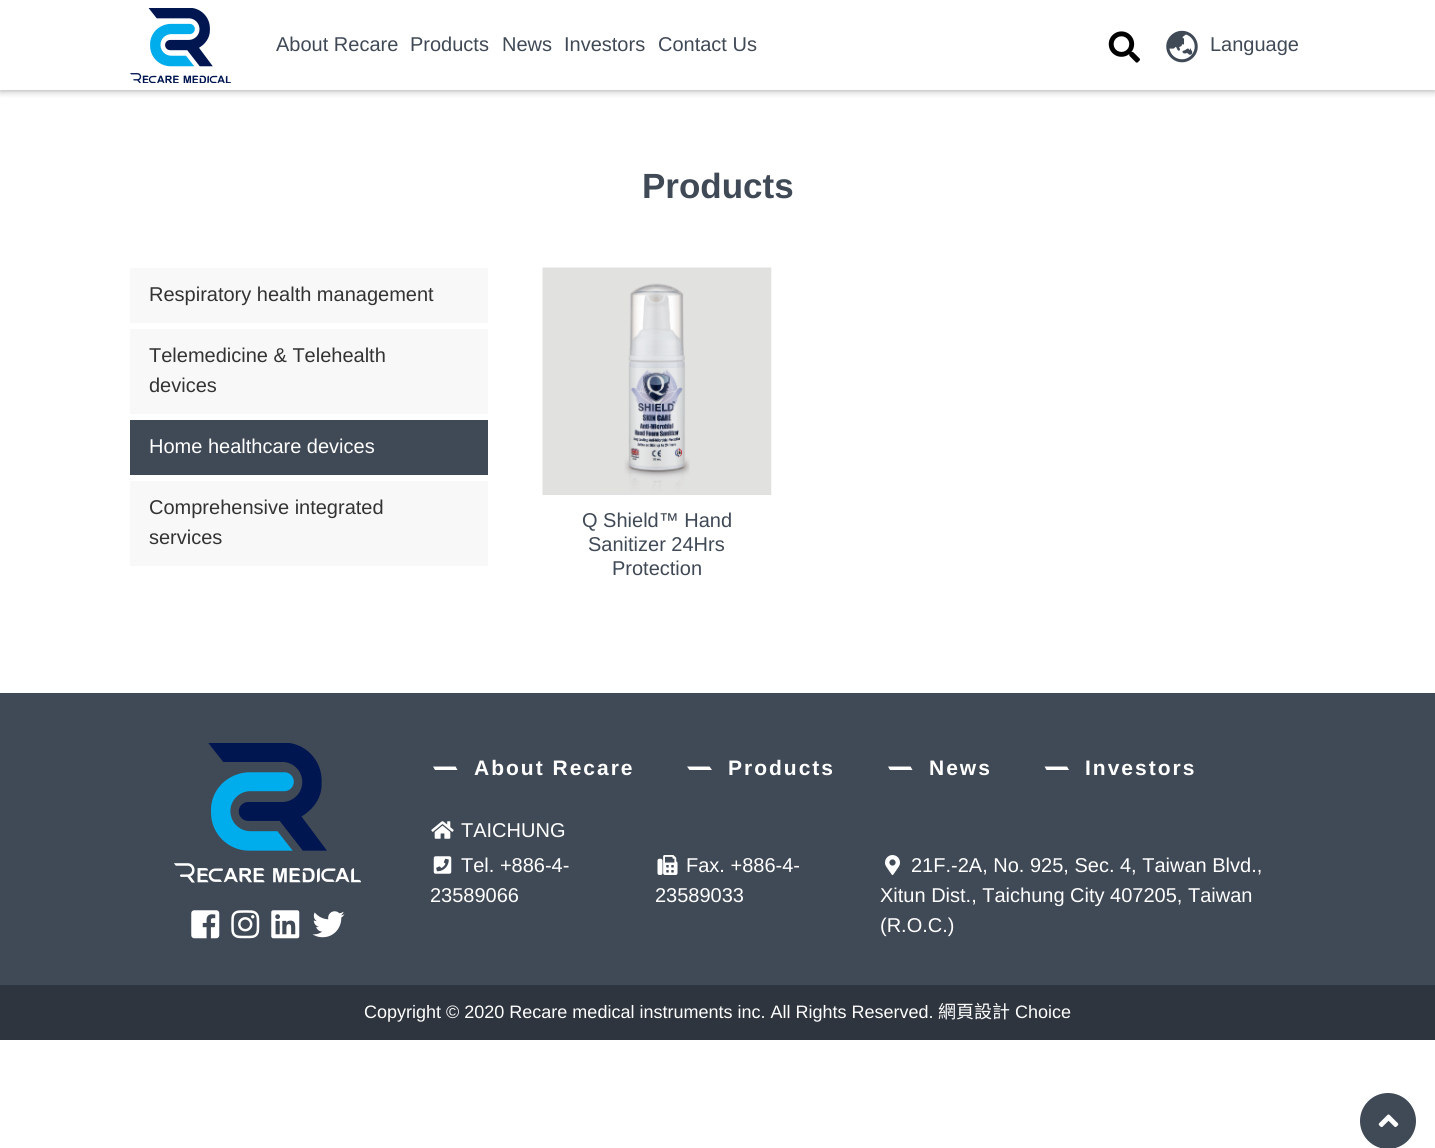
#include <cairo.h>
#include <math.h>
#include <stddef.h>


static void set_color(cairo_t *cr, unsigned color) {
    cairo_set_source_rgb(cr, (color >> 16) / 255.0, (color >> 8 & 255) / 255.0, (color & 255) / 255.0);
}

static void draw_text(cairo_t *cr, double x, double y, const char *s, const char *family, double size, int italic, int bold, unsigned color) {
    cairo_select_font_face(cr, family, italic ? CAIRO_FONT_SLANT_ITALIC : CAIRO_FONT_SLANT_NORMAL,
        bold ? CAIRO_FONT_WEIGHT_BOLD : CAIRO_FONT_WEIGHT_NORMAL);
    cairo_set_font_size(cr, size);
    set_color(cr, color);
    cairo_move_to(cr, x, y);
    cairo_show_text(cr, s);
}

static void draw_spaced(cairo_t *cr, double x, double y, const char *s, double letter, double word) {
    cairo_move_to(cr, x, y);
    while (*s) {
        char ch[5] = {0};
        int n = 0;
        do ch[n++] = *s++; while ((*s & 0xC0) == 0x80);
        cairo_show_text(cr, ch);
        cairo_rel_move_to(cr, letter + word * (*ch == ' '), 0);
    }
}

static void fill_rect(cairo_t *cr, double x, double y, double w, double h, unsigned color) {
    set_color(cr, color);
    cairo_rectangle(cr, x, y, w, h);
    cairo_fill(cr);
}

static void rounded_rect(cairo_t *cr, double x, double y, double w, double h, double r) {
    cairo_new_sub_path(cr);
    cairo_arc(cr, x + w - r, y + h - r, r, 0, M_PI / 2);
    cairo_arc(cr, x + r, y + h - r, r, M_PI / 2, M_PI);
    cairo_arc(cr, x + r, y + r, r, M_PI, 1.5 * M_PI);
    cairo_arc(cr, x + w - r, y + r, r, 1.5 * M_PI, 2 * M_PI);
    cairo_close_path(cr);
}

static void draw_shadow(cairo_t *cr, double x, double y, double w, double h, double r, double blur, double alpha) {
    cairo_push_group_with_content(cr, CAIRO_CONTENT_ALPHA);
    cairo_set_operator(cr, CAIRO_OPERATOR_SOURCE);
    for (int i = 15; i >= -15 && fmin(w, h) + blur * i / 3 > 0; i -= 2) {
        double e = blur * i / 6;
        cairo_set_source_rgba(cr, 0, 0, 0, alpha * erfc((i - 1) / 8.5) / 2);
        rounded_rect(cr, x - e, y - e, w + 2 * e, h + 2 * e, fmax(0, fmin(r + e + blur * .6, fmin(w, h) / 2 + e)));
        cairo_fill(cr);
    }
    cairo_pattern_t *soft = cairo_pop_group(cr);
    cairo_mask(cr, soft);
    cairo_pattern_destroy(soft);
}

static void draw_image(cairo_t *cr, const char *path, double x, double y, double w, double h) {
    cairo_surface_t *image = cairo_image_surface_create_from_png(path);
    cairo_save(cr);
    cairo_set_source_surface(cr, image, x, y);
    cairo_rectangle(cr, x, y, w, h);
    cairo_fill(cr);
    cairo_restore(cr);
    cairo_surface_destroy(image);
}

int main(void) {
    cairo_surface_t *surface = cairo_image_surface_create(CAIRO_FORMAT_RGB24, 1435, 1148);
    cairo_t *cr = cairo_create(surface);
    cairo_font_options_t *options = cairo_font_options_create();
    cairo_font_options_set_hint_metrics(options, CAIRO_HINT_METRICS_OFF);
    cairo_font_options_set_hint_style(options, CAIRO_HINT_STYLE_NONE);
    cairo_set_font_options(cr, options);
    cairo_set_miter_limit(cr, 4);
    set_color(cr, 0xFFFFFF);
    cairo_paint(cr);
    cairo_save(cr);
    cairo_rectangle(cr, 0, 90, 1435, 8);
    cairo_clip(cr);
    set_color(cr, 0x999999);
    draw_shadow(cr, 0, 0, 1435, 90, 0, 4, 1);
    cairo_restore(cr);
    draw_image(cr, "assets/img1.png", 130, 8, 101, 75);
    draw_text(cr, 276, 51, "About Recare", "Liberation Sans", 20, 0, 0, 0x404956);
    draw_text(cr, 410, 51, "Products", "Liberation Sans", 20, 0, 0, 0x404956);
    draw_text(cr, 502, 51, "News", "Liberation Sans", 20, 0, 0, 0x404956);
    draw_text(cr, 564, 51, "Investors", "Liberation Sans", 20, 0, 0, 0x404956);
    draw_text(cr, 658, 51, "Contact Us", "Liberation Sans", 20, 0, 0, 0x404956);
    draw_image(cr, "assets/img2.png", 1108, 31, 32, 32);
    draw_image(cr, "assets/img3.png", 1166, 30, 32, 33);
    draw_text(cr, 1210, 51, "Language", "Liberation Sans", 20, 0, 0, 0x404956);
    draw_text(cr, 642, 198, "Products", "Liberation Sans", 35, 0, 1, 0x404956);
    fill_rect(cr, 130, 268, 358, 55, 0xF8F8F8);
    draw_text(cr, 149, 301, "Respiratory health management", "Liberation Sans", 20, 0, 0, 0x333333);
    fill_rect(cr, 130, 329, 358, 85, 0xF8F8F8);
    draw_text(cr, 149, 362, "Telemedicine & Telehealth", "Liberation Sans", 20, 0, 0, 0x333333);
    draw_text(cr, 149, 392, "devices", "Liberation Sans", 20, 0, 0, 0x333333);
    fill_rect(cr, 130, 420, 358, 55, 0x404956);
    draw_text(cr, 149, 453, "Home healthcare devices", "Liberation Sans", 20, 0, 0, 0xFFFFFF);
    fill_rect(cr, 130, 481, 358, 85, 0xF8F8F8);
    draw_text(cr, 149, 514, "Comprehensive integrated", "Liberation Sans", 20, 0, 0, 0x333333);
    draw_text(cr, 149, 544, "services", "Liberation Sans", 20, 0, 0, 0x333333);
    draw_image(cr, "assets/img4.png", 542, 267, 230, 228);
    draw_text(cr, 582, 527, "Q Shield™ Hand", "Liberation Sans", 20, 0, 0, 0x404956);
    draw_text(cr, 588, 551, "Sanitizer 24Hrs", "Liberation Sans", 20, 0, 0, 0x404956);
    draw_text(cr, 612, 575, "Protection", "Liberation Sans", 20, 0, 0, 0x404956);
    fill_rect(cr, 0, 693, 1435, 292, 0x404956);
    draw_image(cr, "assets/img5.png", 174, 743, 187, 140);
    draw_image(cr, "assets/img6.png", 191, 910, 29, 29);
    draw_image(cr, "assets/img7.png", 231, 910, 29, 29);
    draw_image(cr, "assets/img8.png", 271, 910, 29, 29);
    draw_image(cr, "assets/img9.png", 312, 911, 33, 27);
    set_color(cr, 0xFFFFFF);
    cairo_new_path(cr);
    cairo_move_to(cr, 433, 766.5);
    cairo_line_to(cr, 455.5, 766.5);
    cairo_line_to(cr, 457.5, 770);
    cairo_line_to(cr, 435, 770);
    cairo_close_path(cr);
    cairo_fill(cr);
    cairo_select_font_face(cr, "Liberation Sans", CAIRO_FONT_SLANT_NORMAL, CAIRO_FONT_WEIGHT_BOLD);
    cairo_set_font_size(cr, 21);
    draw_spaced(cr, 474, 775, "About Recare", 2, 0);
    cairo_new_path(cr);
    cairo_move_to(cr, 687, 766.5);
    cairo_line_to(cr, 709.5, 766.5);
    cairo_line_to(cr, 712, 770);
    cairo_line_to(cr, 689.5, 770);
    cairo_close_path(cr);
    cairo_fill(cr);
    draw_spaced(cr, 728, 775, "Products", 2, 0);
    cairo_new_path(cr);
    cairo_move_to(cr, 888, 766.5);
    cairo_line_to(cr, 910.5, 766.5);
    cairo_line_to(cr, 912.5, 770);
    cairo_line_to(cr, 890, 770);
    cairo_close_path(cr);
    cairo_fill(cr);
    draw_spaced(cr, 929, 775, "News", 2, 0);
    cairo_new_path(cr);
    cairo_move_to(cr, 1044.5, 766.5);
    cairo_line_to(cr, 1067, 766.5);
    cairo_line_to(cr, 1069, 770);
    cairo_line_to(cr, 1046.5, 770);
    cairo_close_path(cr);
    cairo_fill(cr);
    draw_spaced(cr, 1085, 775, "Investors", 2, 0);
    draw_image(cr, "assets/img10.png", 431, 821, 23, 18);
    draw_text(cr, 461, 837, "TAICHUNG", "Liberation Sans", 20, 0, 0, 0xFFFFFF);
    draw_image(cr, "assets/img11.png", 433, 856, 19, 18);
    draw_text(cr, 461, 872, "Tel. +886-4-", "Liberation Sans", 20, 0, 0, 0xFFFFFF);
    draw_text(cr, 430, 902, "23589066", "Liberation Sans", 20, 0, 0, 0xFFFFFF);
    draw_image(cr, "assets/img12.png", 657, 855, 21, 20);
    draw_text(cr, 686, 872, "Fax. +886-4-", "Liberation Sans", 20, 0, 0, 0xFFFFFF);
    draw_text(cr, 655, 902, "23589033", "Liberation Sans", 20, 0, 0, 0xFFFFFF);
    draw_image(cr, "assets/img13.png", 885, 855, 15, 20);
    draw_text(cr, 911, 872, "21F.-2A, No. 925, Sec. 4, Taiwan Blvd.,", "Liberation Sans", 20, 0, 0, 0xFFFFFF);
    draw_text(cr, 880, 902, "Xitun Dist., Taichung City 407205, Taiwan", "Liberation Sans", 20, 0, 0, 0xFFFFFF);
    draw_text(cr, 880, 932, "(R.O.C.)", "Liberation Sans", 20, 0, 0, 0xFFFFFF);
    fill_rect(cr, 0, 985, 1435, 55, 0x2F353E);
    draw_text(cr, 364, 1018, "Copyright © 2020 Recare medical instruments inc. All Rights Reserved.", "Liberation Sans", 18, 0, 0, 0xFFFFFF);
    draw_text(cr, 938, 1018, "網頁設計", "Noto Sans CJK TC", 18, 0, 0, 0xFFFFFF);
    draw_text(cr, 1015, 1018, "Choice", "Liberation Sans", 18, 0, 0, 0xFFFFFF);
    set_color(cr, 0x404956);
    cairo_new_path(cr);
    cairo_arc(cr, 1388, 1121, 28, 0, 2 * M_PI);
    cairo_fill(cr);
    draw_image(cr, "assets/img14.png", 1378, 1114, 21, 14);
    cairo_surface_write_to_png(surface, "output.png");
    cairo_font_options_destroy(options);
    cairo_destroy(cr);
    cairo_surface_destroy(surface);
    return 0;
}
